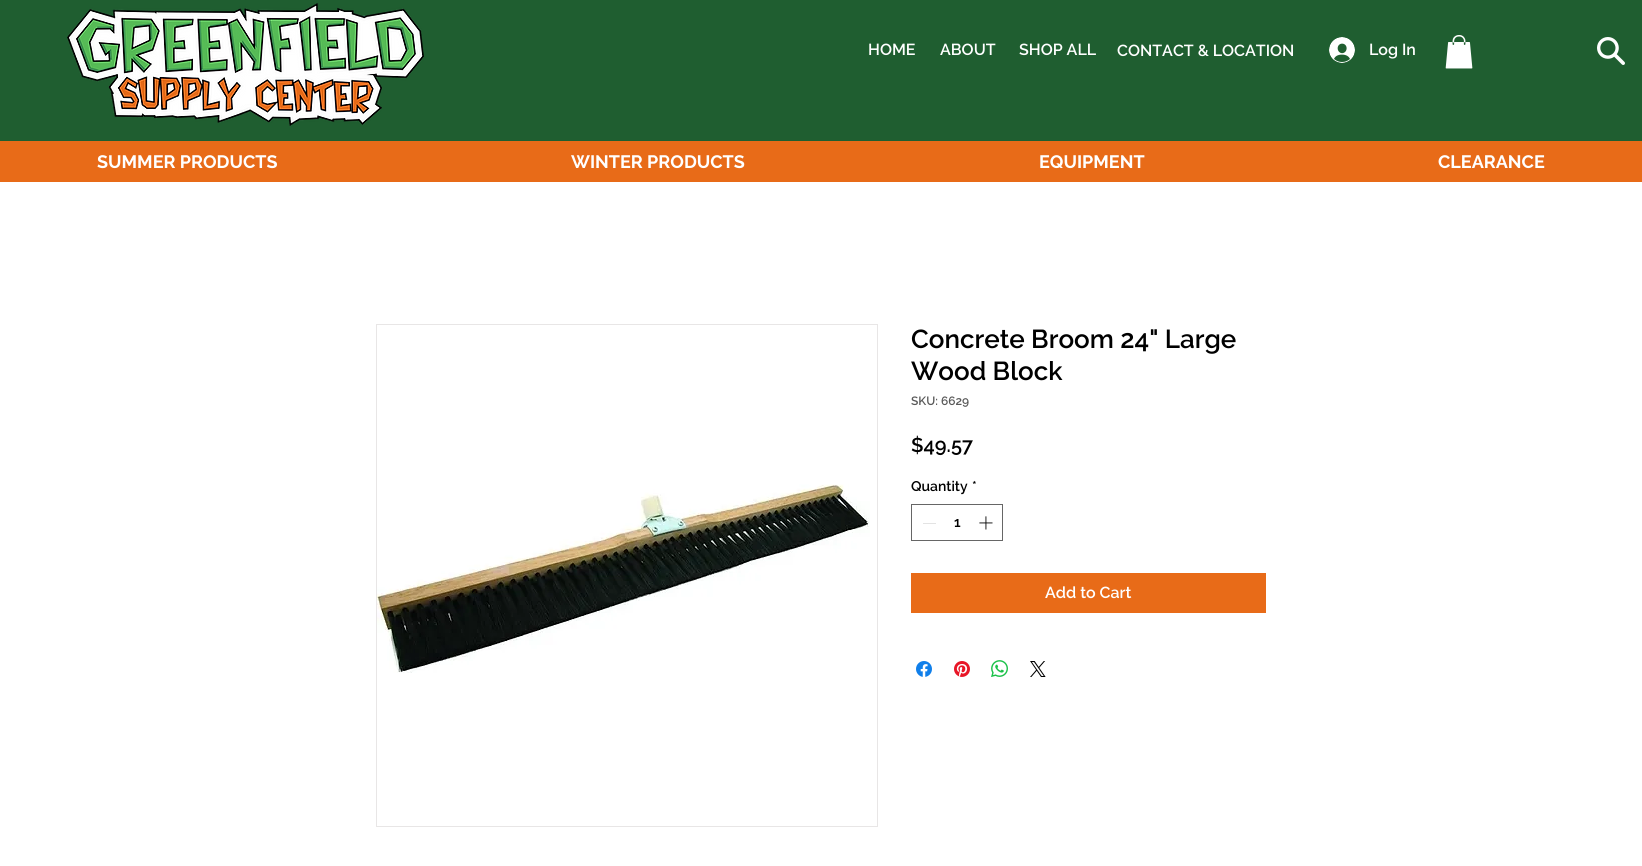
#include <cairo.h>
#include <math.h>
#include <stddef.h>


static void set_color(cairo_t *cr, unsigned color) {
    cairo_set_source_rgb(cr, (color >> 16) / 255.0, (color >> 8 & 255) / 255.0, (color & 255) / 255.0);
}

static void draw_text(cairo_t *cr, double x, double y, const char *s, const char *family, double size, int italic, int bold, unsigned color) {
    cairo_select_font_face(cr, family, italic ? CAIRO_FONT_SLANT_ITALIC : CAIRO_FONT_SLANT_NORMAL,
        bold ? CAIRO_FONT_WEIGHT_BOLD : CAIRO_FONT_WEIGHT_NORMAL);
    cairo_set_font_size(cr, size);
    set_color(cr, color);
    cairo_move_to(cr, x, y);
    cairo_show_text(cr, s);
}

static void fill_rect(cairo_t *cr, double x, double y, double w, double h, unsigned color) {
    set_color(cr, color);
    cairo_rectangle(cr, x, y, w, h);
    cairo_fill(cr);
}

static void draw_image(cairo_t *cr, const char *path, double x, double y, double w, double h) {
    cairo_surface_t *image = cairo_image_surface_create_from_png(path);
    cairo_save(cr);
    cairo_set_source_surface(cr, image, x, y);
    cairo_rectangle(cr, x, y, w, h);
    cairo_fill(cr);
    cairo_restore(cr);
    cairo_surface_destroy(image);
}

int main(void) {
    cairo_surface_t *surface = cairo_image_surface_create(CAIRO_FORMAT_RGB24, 1642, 866);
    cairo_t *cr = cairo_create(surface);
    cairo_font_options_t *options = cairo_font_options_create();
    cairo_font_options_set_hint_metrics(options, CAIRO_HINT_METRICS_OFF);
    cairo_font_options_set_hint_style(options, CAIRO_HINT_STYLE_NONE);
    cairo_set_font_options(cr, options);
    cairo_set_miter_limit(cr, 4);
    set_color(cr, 0xFFFFFF);
    cairo_paint(cr);
    fill_rect(cr, 0, 0, 1642, 141, 0x1F5E30);
    draw_image(cr, "assets/img1.png", 67, 3, 357, 123);
    draw_text(cr, 868, 55, "HOME", "Raleway SemiBold", 16, 0, 0, 0xFFFFFF);
    draw_text(cr, 940, 55, "ABOUT", "Raleway SemiBold", 16, 0, 0, 0xFFFFFF);
    draw_text(cr, 1019, 55, "SHOP ALL", "Raleway SemiBold", 16, 0, 0, 0xFFFFFF);
    draw_text(cr, 1117, 56, "CONTACT & LOCATION", "Raleway SemiBold", 16, 0, 0, 0xFFFFFF);
    draw_image(cr, "assets/img2.png", 1329, 37, 26, 26);
    draw_text(cr, 1369, 55, "Log In", "Raleway SemiBold", 16, 0, 0, 0xFFFFFF);
    draw_image(cr, "assets/img3.png", 1445, 35, 28, 34);
    draw_image(cr, "assets/img4.png", 1597, 37, 28, 28);
    fill_rect(cr, 0, 141, 1642, 41, 0xE86B18);
    draw_text(cr, 97, 168, "SUMMER PRODUCTS", "Raleway", 18, 0, 1, 0xFFFFFF);
    draw_text(cr, 571, 168, "WINTER PRODUCTS", "Raleway", 18, 0, 1, 0xFFFFFF);
    draw_text(cr, 1039, 168, "EQUIPMENT", "Raleway", 18, 0, 1, 0xFFFFFF);
    draw_text(cr, 1438, 168, "CLEARANCE", "Raleway", 18, 0, 1, 0xFFFFFF);
    cairo_rectangle(cr, 376.5, 324.5, 501, 502);
    set_color(cr, 0xE8E6E6);
    cairo_set_line_width(cr, 1);
    cairo_stroke(cr);
    draw_image(cr, "assets/img5.png", 377, 484, 493, 189);
    draw_text(cr, 911, 348, "Concrete Broom 24\" Large", "Raleway SemiBold", 26, 0, 0, 0x000000);
    draw_text(cr, 911, 380, "Wood Block", "Raleway SemiBold", 26, 0, 0, 0x000000);
    draw_text(cr, 911, 405, "SKU: 6629", "Raleway SemiBold", 12, 0, 0, 0x595959);
    draw_text(cr, 911, 452, "$49.57", "Raleway SemiBold", 20, 0, 0, 0x000000);
    draw_text(cr, 911, 491, "Quantity", "Raleway SemiBold", 14, 0, 0, 0x000000);
    draw_text(cr, 972, 491, "*", "Raleway SemiBold", 14, 0, 0, 0x000000);
    cairo_rectangle(cr, 911.5, 504.5, 91, 36);
    set_color(cr, 0x666666);
    cairo_stroke(cr);
    fill_rect(cr, 923, 523, 13, 1, 0xE3E3E3);
    draw_text(cr, 954, 527, "1", "Raleway SemiBold", 14, 0, 0, 0x000000);
    draw_image(cr, "assets/img6.png", 979, 516, 14, 14);
    fill_rect(cr, 911, 573, 355, 40, 0xE86B18);
    draw_text(cr, 1045, 598, "Add to Cart", "Raleway SemiBold", 16, 0, 0, 0xFFFFFF);
    draw_image(cr, "assets/img7.png", 916, 661, 16, 16);
    draw_image(cr, "assets/img8.png", 954, 661, 16, 16);
    draw_image(cr, "assets/img9.png", 991, 660, 17, 17);
    draw_image(cr, "assets/img10.png", 1030, 661, 16, 16);
    cairo_surface_write_to_png(surface, "output.png");
    cairo_font_options_destroy(options);
    cairo_destroy(cr);
    cairo_surface_destroy(surface);
    return 0;
}
